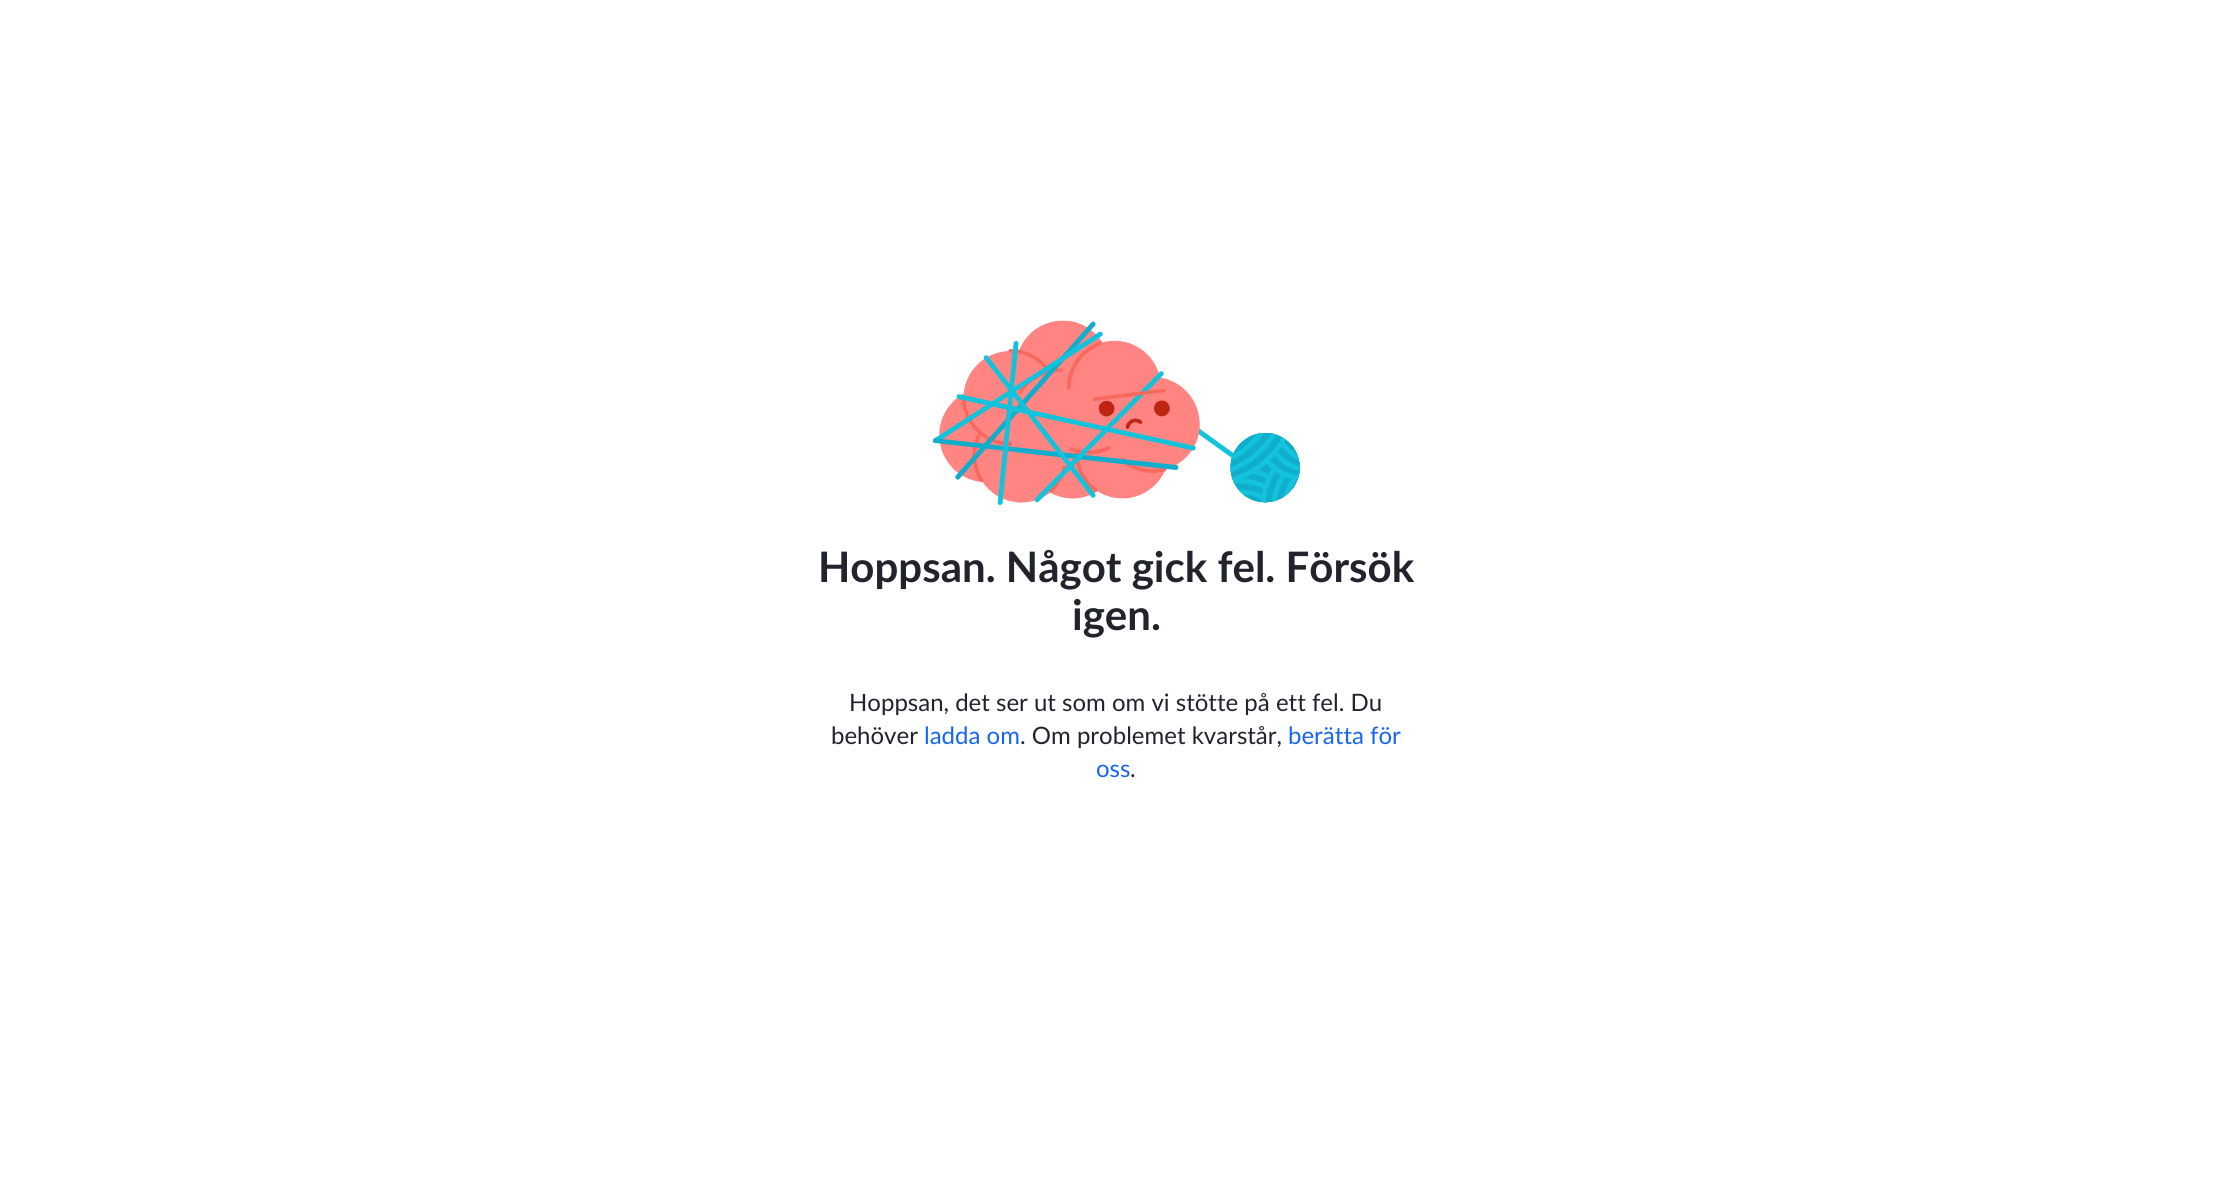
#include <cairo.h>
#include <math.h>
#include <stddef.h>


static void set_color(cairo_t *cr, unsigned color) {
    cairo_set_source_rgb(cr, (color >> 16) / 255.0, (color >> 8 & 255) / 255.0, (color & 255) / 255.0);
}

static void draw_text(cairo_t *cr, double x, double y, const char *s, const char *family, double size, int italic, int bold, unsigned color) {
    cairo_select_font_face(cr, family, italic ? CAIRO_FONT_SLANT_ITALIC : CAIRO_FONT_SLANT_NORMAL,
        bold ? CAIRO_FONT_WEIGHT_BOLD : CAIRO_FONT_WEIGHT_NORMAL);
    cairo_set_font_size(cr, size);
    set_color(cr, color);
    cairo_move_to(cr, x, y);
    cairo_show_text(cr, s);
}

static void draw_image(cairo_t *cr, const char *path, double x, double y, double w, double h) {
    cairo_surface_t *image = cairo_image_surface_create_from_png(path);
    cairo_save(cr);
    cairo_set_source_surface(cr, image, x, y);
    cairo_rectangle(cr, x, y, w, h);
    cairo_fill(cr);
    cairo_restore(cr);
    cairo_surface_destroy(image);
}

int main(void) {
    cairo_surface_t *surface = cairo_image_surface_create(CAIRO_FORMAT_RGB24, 2232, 1194);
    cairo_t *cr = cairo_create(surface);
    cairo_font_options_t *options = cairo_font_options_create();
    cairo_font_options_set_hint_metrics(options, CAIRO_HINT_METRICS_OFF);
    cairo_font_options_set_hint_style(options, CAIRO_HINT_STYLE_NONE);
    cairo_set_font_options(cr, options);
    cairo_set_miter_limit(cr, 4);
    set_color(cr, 0xFFFFFF);
    cairo_paint(cr);
    draw_image(cr, "assets/img1.png", 933, 320, 367, 185);
    draw_text(cr, 818, 582, "Hoppsan. Något gick fel. Försök", "Lato", 42, 0, 1, 0x21242C);
    draw_text(cr, 1072, 630, "igen.", "Lato", 42, 0, 1, 0x21242C);
    draw_text(cr, 849, 711, "Hoppsan, det ser ut som om vi stötte på ett fel. Du", "Lato", 24, 0, 0, 0x21242C);
    draw_text(cr, 831, 744, "behöver", "Lato", 24, 0, 0, 0x21242C);
    draw_text(cr, 924, 744, "ladda om", "Lato", 24, 0, 0, 0x1865F2);
    draw_text(cr, 1020, 744, ". Om problemet kvarstår,", "Lato", 24, 0, 0, 0x21242C);
    draw_text(cr, 1288, 744, "berätta för", "Lato", 24, 0, 0, 0x1865F2);
    draw_text(cr, 1096, 777, "oss", "Lato", 24, 0, 0, 0x1865F2);
    draw_text(cr, 1130, 777, ".", "Lato", 24, 0, 0, 0x21242C);
    cairo_surface_write_to_png(surface, "output.png");
    cairo_font_options_destroy(options);
    cairo_destroy(cr);
    cairo_surface_destroy(surface);
    return 0;
}
